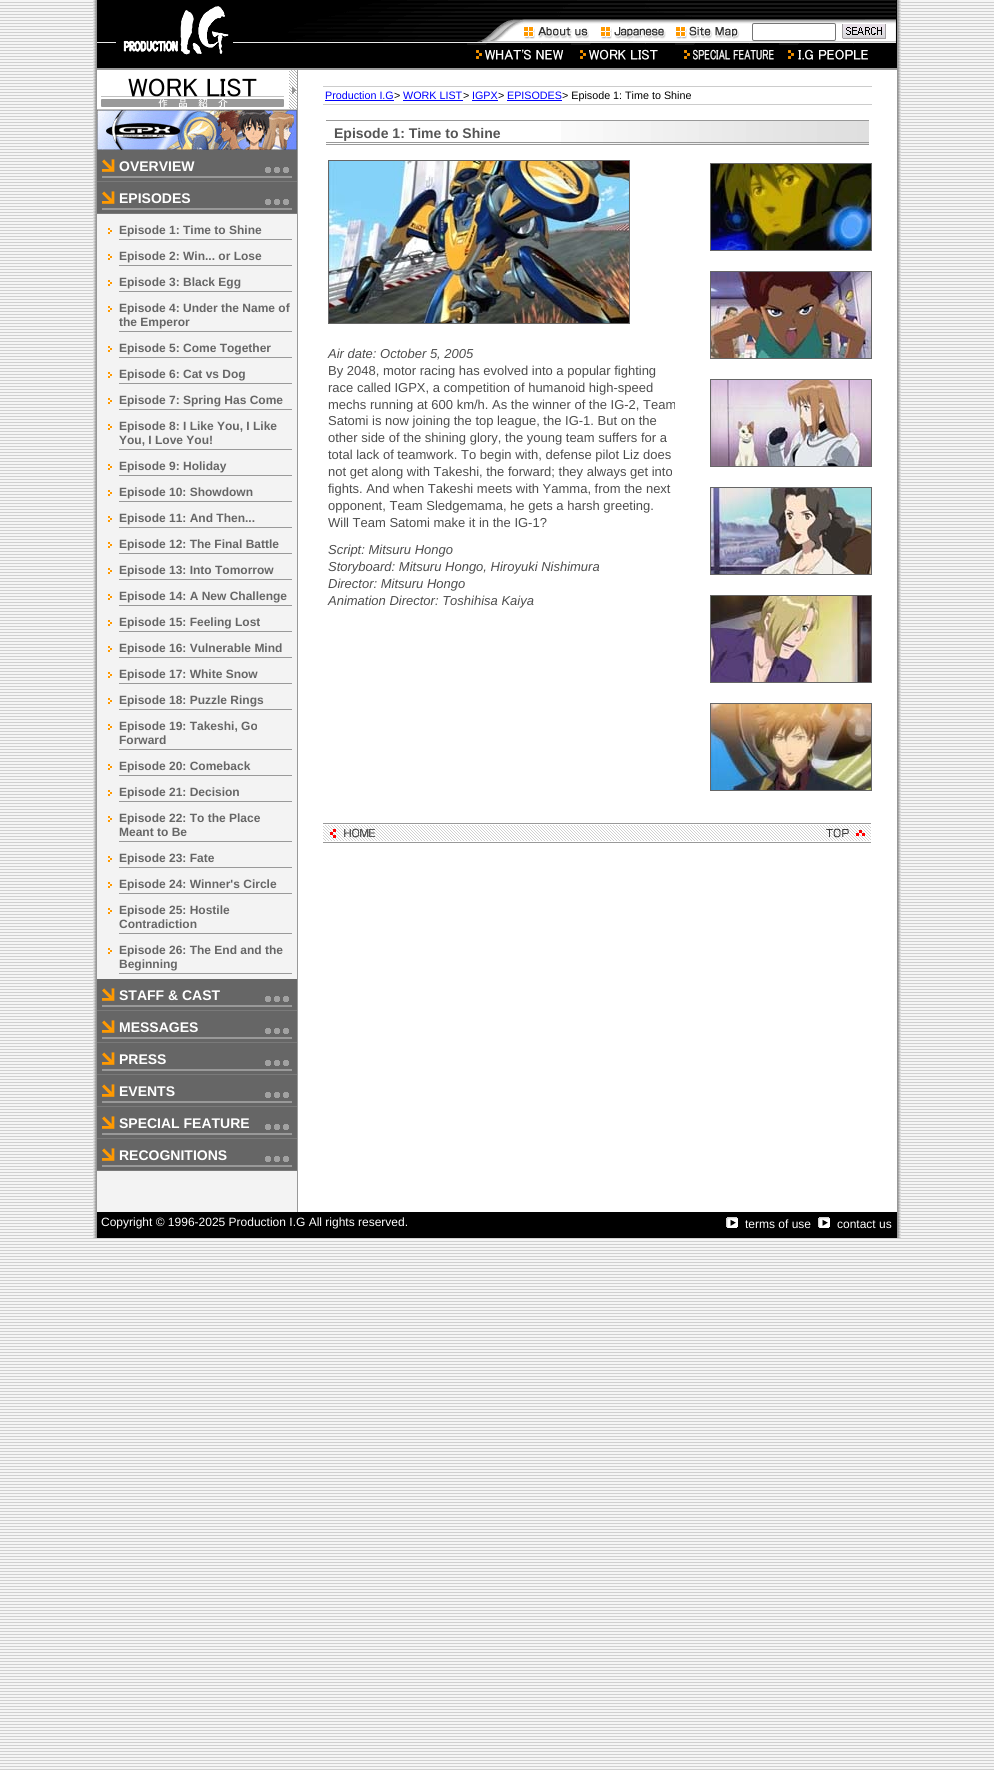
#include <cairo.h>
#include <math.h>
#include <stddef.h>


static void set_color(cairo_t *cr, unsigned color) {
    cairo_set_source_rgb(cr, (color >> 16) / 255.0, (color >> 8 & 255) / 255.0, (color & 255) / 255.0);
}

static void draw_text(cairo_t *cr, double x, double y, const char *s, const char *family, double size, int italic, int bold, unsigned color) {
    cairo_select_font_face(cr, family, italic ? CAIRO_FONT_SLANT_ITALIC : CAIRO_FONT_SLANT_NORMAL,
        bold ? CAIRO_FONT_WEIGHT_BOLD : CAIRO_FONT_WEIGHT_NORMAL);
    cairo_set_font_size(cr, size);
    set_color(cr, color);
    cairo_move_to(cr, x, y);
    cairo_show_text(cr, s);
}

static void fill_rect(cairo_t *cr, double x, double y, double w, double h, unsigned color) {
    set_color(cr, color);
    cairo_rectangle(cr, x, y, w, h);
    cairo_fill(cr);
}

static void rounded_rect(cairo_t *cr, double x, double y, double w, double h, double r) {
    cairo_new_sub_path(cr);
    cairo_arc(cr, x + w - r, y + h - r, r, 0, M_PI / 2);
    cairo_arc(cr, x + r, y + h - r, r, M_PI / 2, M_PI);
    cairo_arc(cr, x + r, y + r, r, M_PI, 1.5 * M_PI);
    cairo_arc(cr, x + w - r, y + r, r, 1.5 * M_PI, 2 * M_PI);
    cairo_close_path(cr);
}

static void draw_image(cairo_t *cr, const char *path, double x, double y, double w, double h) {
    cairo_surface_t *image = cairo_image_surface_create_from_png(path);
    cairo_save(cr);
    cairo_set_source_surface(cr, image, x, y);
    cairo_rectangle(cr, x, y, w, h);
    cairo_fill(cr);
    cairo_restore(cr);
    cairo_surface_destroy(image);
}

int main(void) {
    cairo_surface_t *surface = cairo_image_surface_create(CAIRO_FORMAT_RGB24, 994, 1770);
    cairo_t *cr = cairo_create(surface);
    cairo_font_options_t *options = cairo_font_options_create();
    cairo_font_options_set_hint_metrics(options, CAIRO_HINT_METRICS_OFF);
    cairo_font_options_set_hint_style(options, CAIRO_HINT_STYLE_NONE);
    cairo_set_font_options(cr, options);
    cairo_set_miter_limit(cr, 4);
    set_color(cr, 0xFFFFFF);
    cairo_paint(cr);
    draw_image(cr, "assets/img1.png", 0, 0, 994, 1770);
    draw_image(cr, "assets/img2.png", 93, 0, 808, 1238);
    fill_rect(cr, 97, 0, 800, 68, 0x000000);
    draw_image(cr, "assets/img3.png", 97, 0, 799, 43);
    fill_rect(cr, 97, 68, 800, 2, 0x999999);
    draw_image(cr, "assets/img4.png", 123, 6, 106, 49);
    draw_image(cr, "assets/img5.png", 523, 23, 66, 16);
    draw_image(cr, "assets/img6.png", 601, 27, 65, 13);
    draw_image(cr, "assets/img7.png", 676, 26, 64, 14);
    set_color(cr, 0xFFFFFF);
    rounded_rect(cr, 752.5, 23.5, 83, 17, 1.5);
    cairo_fill_preserve(cr);
    set_color(cr, 0x767676);
    cairo_set_line_width(cr, 1);
    cairo_stroke(cr);
    draw_image(cr, "assets/img8.png", 842, 23, 44, 16);
    draw_image(cr, "assets/img9.png", 467, 43, 97, 17);
    draw_image(cr, "assets/img10.png", 571, 43, 87, 17);
    draw_image(cr, "assets/img11.png", 675, 43, 99, 17);
    draw_image(cr, "assets/img12.png", 779, 43, 89, 17);
    fill_rect(cr, 97, 214, 200, 765, 0xF3F3F3);
    draw_image(cr, "assets/img13.png", 97, 70, 200, 40);
    draw_image(cr, "assets/img14.png", 97, 110, 200, 40);
    fill_rect(cr, 97, 150, 200, 9, 0x666666);
    draw_image(cr, "assets/img15.png", 97, 159, 200, 23);
    draw_text(cr, 119, 171, "OVERVIEW", "Liberation Sans", 14, 0, 1, 0xFFFFFF);
    fill_rect(cr, 97, 182, 200, 9, 0x666666);
    draw_image(cr, "assets/img15.png", 97, 191, 200, 23);
    draw_text(cr, 119, 203, "EPISODES", "Liberation Sans", 14, 0, 1, 0xFFFFFF);
    fill_rect(cr, 119, 239, 173, 1, 0x999999);
    draw_image(cr, "assets/img16.png", 108, 228, 4, 6);
    draw_text(cr, 119, 234, "Episode 1: Time to Shine", "Liberation Sans", 12, 0, 1, 0x666666);
    fill_rect(cr, 119, 265, 173, 1, 0x999999);
    draw_image(cr, "assets/img16.png", 108, 254, 4, 6);
    draw_text(cr, 119, 260, "Episode 2: Win... or Lose", "Liberation Sans", 12, 0, 1, 0x666666);
    fill_rect(cr, 119, 291, 173, 1, 0x999999);
    draw_image(cr, "assets/img16.png", 108, 280, 4, 6);
    draw_text(cr, 119, 286, "Episode 3: Black Egg", "Liberation Sans", 12, 0, 1, 0x666666);
    fill_rect(cr, 119, 331, 173, 1, 0x999999);
    draw_image(cr, "assets/img16.png", 108, 306, 4, 6);
    draw_text(cr, 119, 312, "Episode 4: Under the Name of", "Liberation Sans", 12, 0, 1, 0x666666);
    draw_text(cr, 119, 326, "the Emperor", "Liberation Sans", 12, 0, 1, 0x666666);
    fill_rect(cr, 119, 357, 173, 1, 0x999999);
    draw_image(cr, "assets/img16.png", 108, 346, 4, 6);
    draw_text(cr, 119, 352, "Episode 5: Come Together", "Liberation Sans", 12, 0, 1, 0x666666);
    fill_rect(cr, 119, 383, 173, 1, 0x999999);
    draw_image(cr, "assets/img16.png", 108, 372, 4, 6);
    draw_text(cr, 119, 378, "Episode 6: Cat vs Dog", "Liberation Sans", 12, 0, 1, 0x666666);
    fill_rect(cr, 119, 409, 173, 1, 0x999999);
    draw_image(cr, "assets/img16.png", 108, 398, 4, 6);
    draw_text(cr, 119, 404, "Episode 7: Spring Has Come", "Liberation Sans", 12, 0, 1, 0x666666);
    fill_rect(cr, 119, 449, 173, 1, 0x999999);
    draw_image(cr, "assets/img16.png", 108, 424, 4, 6);
    draw_text(cr, 119, 430, "Episode 8: I Like You, I Like", "Liberation Sans", 12, 0, 1, 0x666666);
    draw_text(cr, 119, 444, "You, I Love You!", "Liberation Sans", 12, 0, 1, 0x666666);
    fill_rect(cr, 119, 475, 173, 1, 0x999999);
    draw_image(cr, "assets/img16.png", 108, 464, 4, 6);
    draw_text(cr, 119, 470, "Episode 9: Holiday", "Liberation Sans", 12, 0, 1, 0x666666);
    fill_rect(cr, 119, 501, 173, 1, 0x999999);
    draw_image(cr, "assets/img16.png", 108, 490, 4, 6);
    draw_text(cr, 119, 496, "Episode 10: Showdown", "Liberation Sans", 12, 0, 1, 0x666666);
    fill_rect(cr, 119, 527, 173, 1, 0x999999);
    draw_image(cr, "assets/img16.png", 108, 516, 4, 6);
    draw_text(cr, 119, 522, "Episode 11: And Then...", "Liberation Sans", 12, 0, 1, 0x666666);
    fill_rect(cr, 119, 553, 173, 1, 0x999999);
    draw_image(cr, "assets/img16.png", 108, 542, 4, 6);
    draw_text(cr, 119, 548, "Episode 12: The Final Battle", "Liberation Sans", 12, 0, 1, 0x666666);
    fill_rect(cr, 119, 579, 173, 1, 0x999999);
    draw_image(cr, "assets/img16.png", 108, 568, 4, 6);
    draw_text(cr, 119, 574, "Episode 13: Into Tomorrow", "Liberation Sans", 12, 0, 1, 0x666666);
    fill_rect(cr, 119, 605, 173, 1, 0x999999);
    draw_image(cr, "assets/img16.png", 108, 594, 4, 6);
    draw_text(cr, 119, 600, "Episode 14: A New Challenge", "Liberation Sans", 12, 0, 1, 0x666666);
    fill_rect(cr, 119, 631, 173, 1, 0x999999);
    draw_image(cr, "assets/img16.png", 108, 620, 4, 6);
    draw_text(cr, 119, 626, "Episode 15: Feeling Lost", "Liberation Sans", 12, 0, 1, 0x666666);
    fill_rect(cr, 119, 657, 173, 1, 0x999999);
    draw_image(cr, "assets/img16.png", 108, 646, 4, 6);
    draw_text(cr, 119, 652, "Episode 16: Vulnerable Mind", "Liberation Sans", 12, 0, 1, 0x666666);
    fill_rect(cr, 119, 683, 173, 1, 0x999999);
    draw_image(cr, "assets/img16.png", 108, 672, 4, 6);
    draw_text(cr, 119, 678, "Episode 17: White Snow", "Liberation Sans", 12, 0, 1, 0x666666);
    fill_rect(cr, 119, 709, 173, 1, 0x999999);
    draw_image(cr, "assets/img16.png", 108, 698, 4, 6);
    draw_text(cr, 119, 704, "Episode 18: Puzzle Rings", "Liberation Sans", 12, 0, 1, 0x666666);
    fill_rect(cr, 119, 749, 173, 1, 0x999999);
    draw_image(cr, "assets/img16.png", 108, 724, 4, 6);
    draw_text(cr, 119, 730, "Episode 19: Takeshi, Go", "Liberation Sans", 12, 0, 1, 0x666666);
    draw_text(cr, 119, 744, "Forward", "Liberation Sans", 12, 0, 1, 0x666666);
    fill_rect(cr, 119, 775, 173, 1, 0x999999);
    draw_image(cr, "assets/img16.png", 108, 764, 4, 6);
    draw_text(cr, 119, 770, "Episode 20: Comeback", "Liberation Sans", 12, 0, 1, 0x666666);
    fill_rect(cr, 119, 801, 173, 1, 0x999999);
    draw_image(cr, "assets/img16.png", 108, 790, 4, 6);
    draw_text(cr, 119, 796, "Episode 21: Decision", "Liberation Sans", 12, 0, 1, 0x666666);
    fill_rect(cr, 119, 841, 173, 1, 0x999999);
    draw_image(cr, "assets/img16.png", 108, 816, 4, 6);
    draw_text(cr, 119, 822, "Episode 22: To the Place", "Liberation Sans", 12, 0, 1, 0x666666);
    draw_text(cr, 119, 836, "Meant to Be", "Liberation Sans", 12, 0, 1, 0x666666);
    fill_rect(cr, 119, 867, 173, 1, 0x999999);
    draw_image(cr, "assets/img16.png", 108, 856, 4, 6);
    draw_text(cr, 119, 862, "Episode 23: Fate", "Liberation Sans", 12, 0, 1, 0x666666);
    fill_rect(cr, 119, 893, 173, 1, 0x999999);
    draw_image(cr, "assets/img16.png", 108, 882, 4, 6);
    draw_text(cr, 119, 888, "Episode 24: Winner's Circle", "Liberation Sans", 12, 0, 1, 0x666666);
    fill_rect(cr, 119, 933, 173, 1, 0x999999);
    draw_image(cr, "assets/img16.png", 108, 908, 4, 6);
    draw_text(cr, 119, 914, "Episode 25: Hostile", "Liberation Sans", 12, 0, 1, 0x666666);
    draw_text(cr, 119, 928, "Contradiction", "Liberation Sans", 12, 0, 1, 0x666666);
    fill_rect(cr, 119, 973, 173, 1, 0x999999);
    draw_image(cr, "assets/img16.png", 108, 948, 4, 6);
    draw_text(cr, 119, 954, "Episode 26: The End and the", "Liberation Sans", 12, 0, 1, 0x666666);
    draw_text(cr, 119, 968, "Beginning", "Liberation Sans", 12, 0, 1, 0x666666);
    fill_rect(cr, 97, 979, 200, 9, 0x666666);
    draw_image(cr, "assets/img15.png", 97, 988, 200, 23);
    draw_text(cr, 119, 1000, "STAFF & CAST", "Liberation Sans", 14, 0, 1, 0xFFFFFF);
    fill_rect(cr, 97, 1011, 200, 9, 0x666666);
    draw_image(cr, "assets/img15.png", 97, 1020, 200, 23);
    draw_text(cr, 119, 1032, "MESSAGES", "Liberation Sans", 14, 0, 1, 0xFFFFFF);
    fill_rect(cr, 97, 1043, 200, 9, 0x666666);
    draw_image(cr, "assets/img15.png", 97, 1052, 200, 23);
    draw_text(cr, 119, 1064, "PRESS", "Liberation Sans", 14, 0, 1, 0xFFFFFF);
    fill_rect(cr, 97, 1075, 200, 9, 0x666666);
    draw_image(cr, "assets/img15.png", 97, 1084, 200, 23);
    draw_text(cr, 119, 1096, "EVENTS", "Liberation Sans", 14, 0, 1, 0xFFFFFF);
    fill_rect(cr, 97, 1107, 200, 9, 0x666666);
    draw_image(cr, "assets/img15.png", 97, 1116, 200, 23);
    draw_text(cr, 119, 1128, "SPECIAL FEATURE", "Liberation Sans", 14, 0, 1, 0xFFFFFF);
    fill_rect(cr, 97, 1139, 200, 9, 0x666666);
    draw_image(cr, "assets/img15.png", 97, 1148, 200, 23);
    draw_text(cr, 119, 1160, "RECOGNITIONS", "Liberation Sans", 14, 0, 1, 0xFFFFFF);
    fill_rect(cr, 297, 70, 1, 1142, 0x999999);
    fill_rect(cr, 323, 86, 549, 1, 0xCCCCCC);
    fill_rect(cr, 323, 104, 549, 1, 0xCCCCCC);
    draw_text(cr, 325, 99, "Production I.G", "Liberation Sans", 10.75, 0, 0, 0x0000FF);
    fill_rect(cr, 325, 100, 69, 1, 0x0000FF);
    draw_text(cr, 394, 99, ">", "Liberation Sans", 10.75, 0, 0, 0x000000);
    draw_text(cr, 403, 99, "WORK LIST", "Liberation Sans", 10.75, 0, 0, 0x0000FF);
    fill_rect(cr, 403, 100, 60, 1, 0x0000FF);
    draw_text(cr, 463, 99, ">", "Liberation Sans", 10.75, 0, 0, 0x000000);
    draw_text(cr, 472, 99, "IGPX", "Liberation Sans", 10.75, 0, 0, 0x0000FF);
    fill_rect(cr, 472, 100, 26, 1, 0x0000FF);
    draw_text(cr, 498, 99, ">", "Liberation Sans", 10.75, 0, 0, 0x000000);
    draw_text(cr, 507, 99, "EPISODES", "Liberation Sans", 10.75, 0, 0, 0x0000FF);
    fill_rect(cr, 507, 100, 55, 1, 0x0000FF);
    draw_text(cr, 562, 99, "> Episode 1: Time to Shine", "Liberation Sans", 10.75, 0, 0, 0x000000);
    draw_image(cr, "assets/img17.png", 561, 121, 308, 23);
    fill_rect(cr, 326, 120, 543, 1, 0x999999);
    fill_rect(cr, 326, 142, 543, 1, 0x999999);
    fill_rect(cr, 326, 144, 543, 1, 0x999999);
    draw_text(cr, 334, 138, "Episode 1: Time to Shine", "Liberation Sans", 14, 0, 1, 0x555555);
    cairo_rectangle(cr, 328.5, 160.5, 301, 163);
    set_color(cr, 0x666666);
    cairo_stroke(cr);
    draw_image(cr, "assets/img18.png", 329, 161, 300, 162);
    draw_text(cr, 328, 358, "Air date: October 5, 2005", "Liberation Sans", 13, 1, 0, 0x4D4D4D);
    draw_text(cr, 328, 375, "By 2048, motor racing has evolved into a popular fighting", "Liberation Sans", 13, 0, 0, 0x4D4D4D);
    draw_text(cr, 328, 392, "race called IGPX, a competition of humanoid high-speed", "Liberation Sans", 13, 0, 0, 0x4D4D4D);
    draw_text(cr, 328, 409, "mechs running at 600 km/h. As the winner of the IG-2, Team", "Liberation Sans", 13, 0, 0, 0x4D4D4D);
    draw_text(cr, 328, 425, "Satomi is now joining the top league, the IG-1. But on the", "Liberation Sans", 13, 0, 0, 0x4D4D4D);
    draw_text(cr, 328, 442, "other side of the shining glory, the young team suffers for a", "Liberation Sans", 13, 0, 0, 0x4D4D4D);
    draw_text(cr, 328, 459, "total lack of teamwork. To begin with, defense pilot Liz does", "Liberation Sans", 13, 0, 0, 0x4D4D4D);
    draw_text(cr, 328, 476, "not get along with Takeshi, the forward; they always get into", "Liberation Sans", 13, 0, 0, 0x4D4D4D);
    draw_text(cr, 328, 493, "fights. And when Takeshi meets with Yamma, from the next", "Liberation Sans", 13, 0, 0, 0x4D4D4D);
    draw_text(cr, 328, 510, "opponent, Team Sledgemama, he gets a harsh greeting.", "Liberation Sans", 13, 0, 0, 0x4D4D4D);
    draw_text(cr, 328, 527, "Will Team Satomi make it in the IG-1?", "Liberation Sans", 13, 0, 0, 0x4D4D4D);
    draw_text(cr, 328, 554, "Script: Mitsuru Hongo", "Liberation Sans", 13, 1, 0, 0x4D4D4D);
    draw_text(cr, 328, 571, "Storyboard: Mitsuru Hongo, Hiroyuki Nishimura", "Liberation Sans", 13, 1, 0, 0x4D4D4D);
    draw_text(cr, 328, 588, "Director: Mitsuru Hongo", "Liberation Sans", 13, 1, 0, 0x4D4D4D);
    draw_text(cr, 328, 605, "Animation Director: Toshihisa Kaiya", "Liberation Sans", 13, 1, 0, 0x4D4D4D);
    cairo_rectangle(cr, 710.5, 163.5, 161, 87);
    set_color(cr, 0x666666);
    cairo_stroke(cr);
    draw_image(cr, "assets/img19.png", 711, 164, 160, 86);
    cairo_rectangle(cr, 710.5, 271.5, 161, 87);
    cairo_stroke(cr);
    draw_image(cr, "assets/img20.png", 711, 272, 160, 86);
    cairo_rectangle(cr, 710.5, 379.5, 161, 87);
    cairo_stroke(cr);
    draw_image(cr, "assets/img21.png", 711, 380, 160, 86);
    cairo_rectangle(cr, 710.5, 487.5, 161, 87);
    cairo_stroke(cr);
    draw_image(cr, "assets/img22.png", 711, 488, 160, 86);
    cairo_rectangle(cr, 710.5, 595.5, 161, 87);
    cairo_stroke(cr);
    draw_image(cr, "assets/img23.png", 711, 596, 160, 86);
    cairo_rectangle(cr, 710.5, 703.5, 161, 87);
    cairo_stroke(cr);
    draw_image(cr, "assets/img24.png", 711, 704, 160, 86);
    draw_image(cr, "assets/img25.png", 323, 823, 112, 20);
    draw_image(cr, "assets/img26.png", 435, 823, 309, 20);
    draw_image(cr, "assets/img27.png", 744, 823, 127, 20);
    fill_rect(cr, 97, 1171, 200, 41, 0xF3F3F3);
    fill_rect(cr, 97, 1212, 800, 26, 0x000000);
    draw_text(cr, 101, 1226, "Copyright © 1996-2025 Production I.G All rights reserved.", "Liberation Sans", 12, 0, 0, 0xFFFFFF);
    draw_image(cr, "assets/img28.png", 726, 1217, 12, 11);
    draw_text(cr, 745, 1228, "terms of use", "Liberation Sans", 12, 0, 0, 0xFFFFFF);
    draw_image(cr, "assets/img28.png", 818, 1217, 12, 11);
    draw_text(cr, 837, 1228, "contact us", "Liberation Sans", 12, 0, 0, 0xFFFFFF);
    cairo_surface_write_to_png(surface, "output.png");
    cairo_font_options_destroy(options);
    cairo_destroy(cr);
    cairo_surface_destroy(surface);
    return 0;
}
